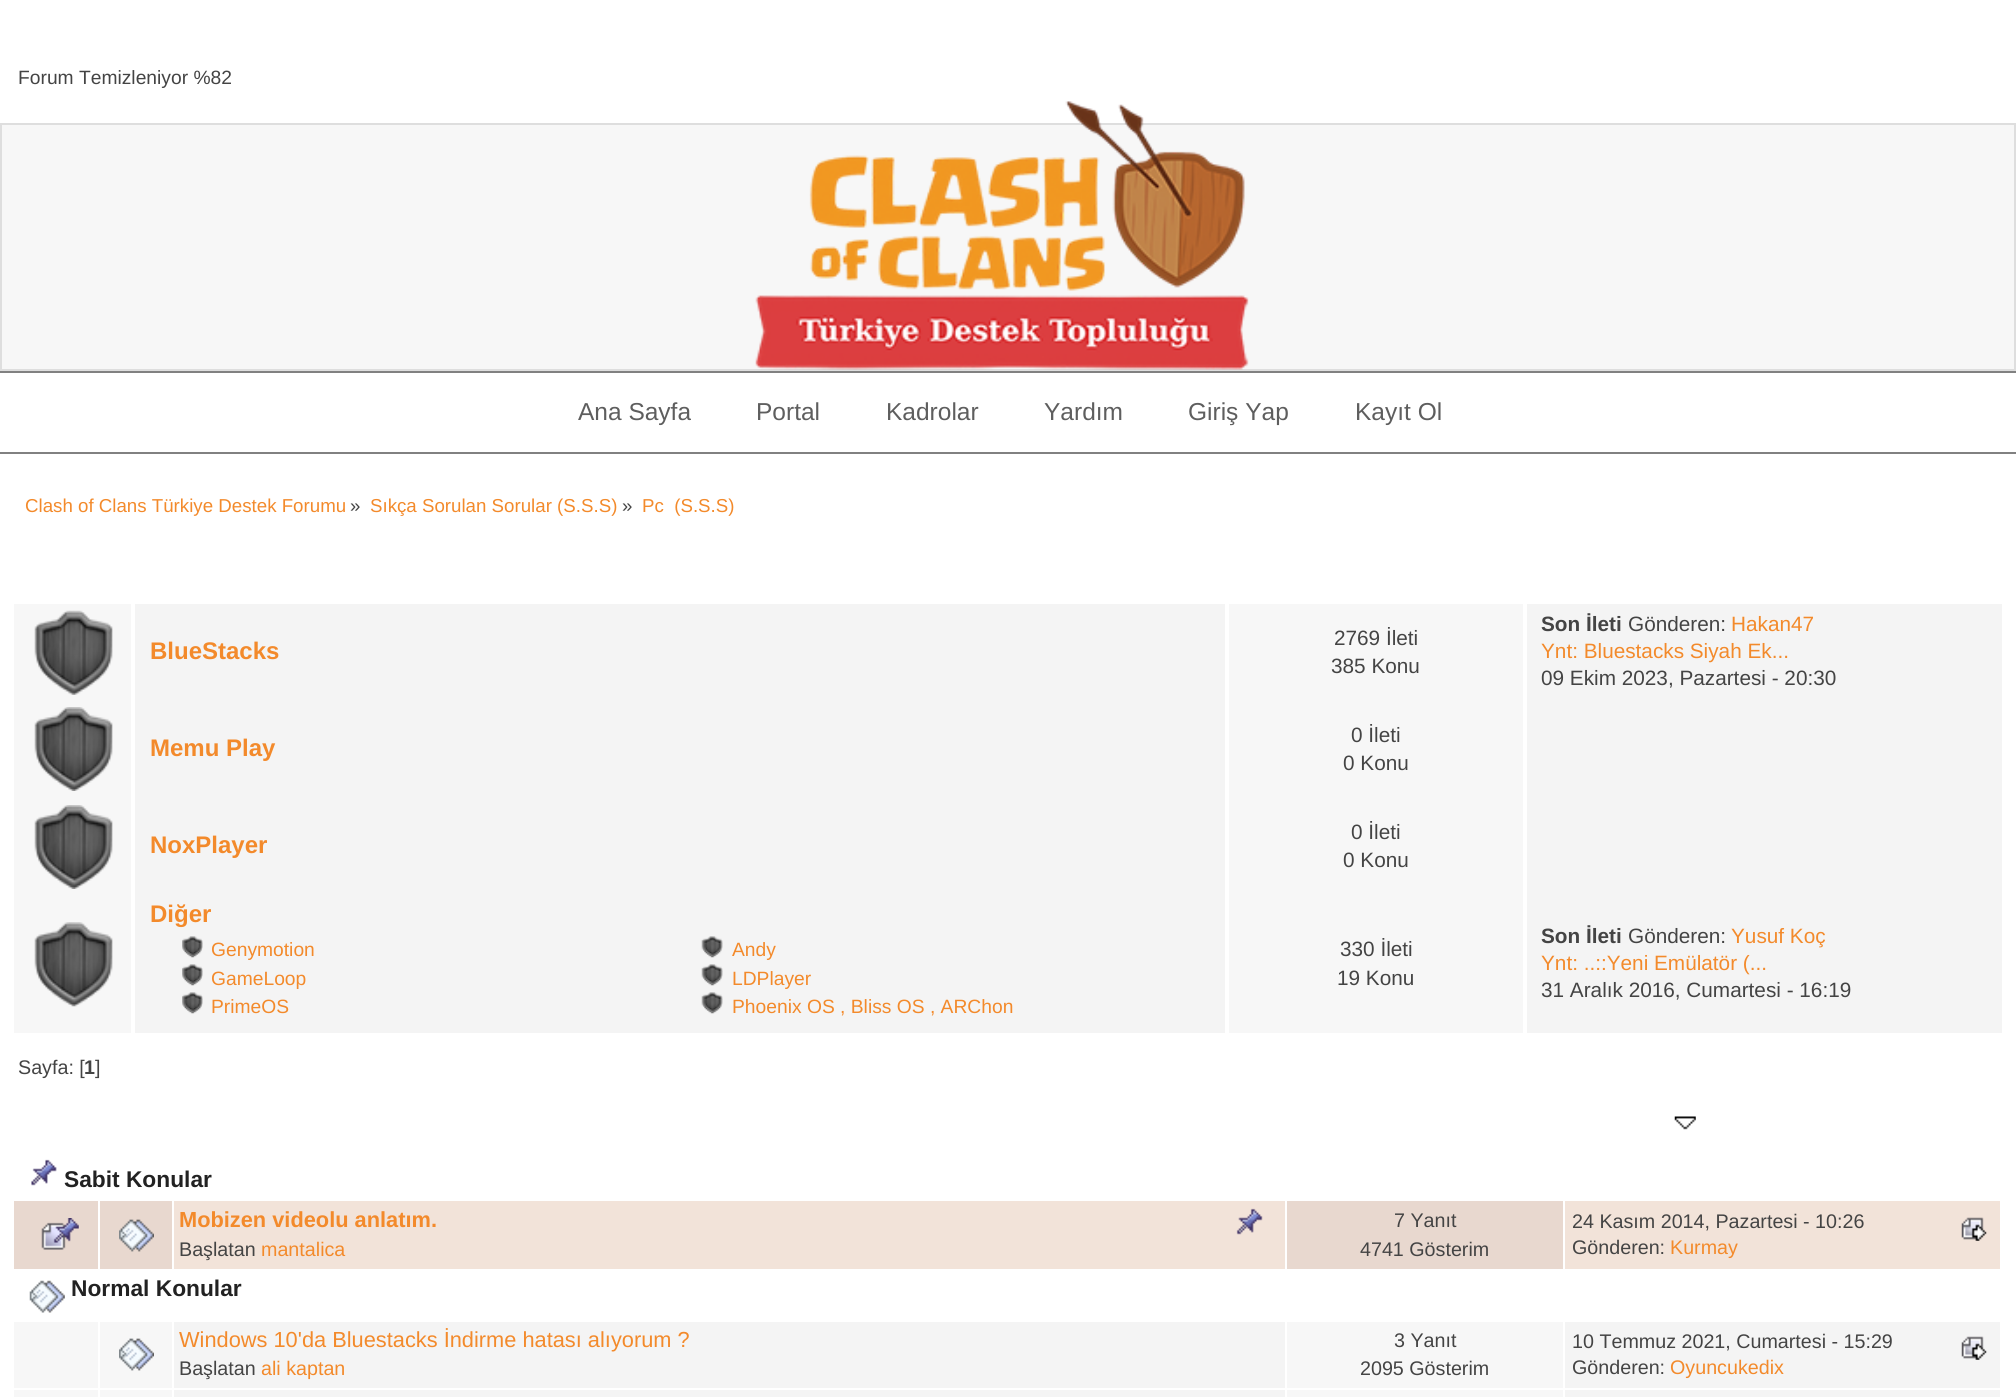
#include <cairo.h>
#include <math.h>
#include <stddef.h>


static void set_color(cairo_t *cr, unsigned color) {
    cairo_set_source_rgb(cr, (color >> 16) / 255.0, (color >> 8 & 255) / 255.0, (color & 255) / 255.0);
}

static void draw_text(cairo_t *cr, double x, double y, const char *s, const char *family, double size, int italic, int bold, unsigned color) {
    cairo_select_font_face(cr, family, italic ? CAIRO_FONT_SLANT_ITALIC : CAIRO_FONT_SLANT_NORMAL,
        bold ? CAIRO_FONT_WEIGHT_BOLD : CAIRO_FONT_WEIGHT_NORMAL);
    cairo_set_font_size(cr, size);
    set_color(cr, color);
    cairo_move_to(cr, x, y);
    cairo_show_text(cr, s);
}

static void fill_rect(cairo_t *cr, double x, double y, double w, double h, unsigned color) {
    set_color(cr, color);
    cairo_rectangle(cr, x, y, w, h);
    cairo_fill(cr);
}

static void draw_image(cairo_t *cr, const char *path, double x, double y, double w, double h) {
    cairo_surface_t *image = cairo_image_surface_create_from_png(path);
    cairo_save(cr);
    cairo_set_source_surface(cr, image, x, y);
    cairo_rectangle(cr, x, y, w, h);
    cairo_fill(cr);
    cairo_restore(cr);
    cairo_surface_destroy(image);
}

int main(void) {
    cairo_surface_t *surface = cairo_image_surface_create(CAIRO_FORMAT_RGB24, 2016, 1397);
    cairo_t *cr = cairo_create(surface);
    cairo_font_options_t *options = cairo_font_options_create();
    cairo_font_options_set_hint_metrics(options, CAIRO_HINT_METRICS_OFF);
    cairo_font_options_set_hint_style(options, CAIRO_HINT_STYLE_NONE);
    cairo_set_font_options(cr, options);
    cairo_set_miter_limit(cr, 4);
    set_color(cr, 0xFFFFFF);
    cairo_paint(cr);
    draw_text(cr, 18, 84, "Forum Temizleniyor %82", "Liberation Sans", 19.25, 0, 0, 0x444444);
    set_color(cr, 0xF7F7F7);
    cairo_rectangle(cr, 1, 124, 2014, 246);
    cairo_fill_preserve(cr);
    set_color(cr, 0xDEDEDE);
    cairo_stroke(cr);
    draw_image(cr, "assets/img1.png", 755, 101, 494, 269);
    fill_rect(cr, 0, 371, 2016, 2, 0x818181);
    fill_rect(cr, 0, 452, 2016, 2, 0x818181);
    draw_text(cr, 578, 420, "Ana Sayfa", "Liberation Sans", 24.5, 0, 0, 0x5E5E5E);
    draw_text(cr, 756, 420, "Portal", "Liberation Sans", 24.5, 0, 0, 0x5E5E5E);
    draw_text(cr, 886, 420, "Kadrolar", "Liberation Sans", 24.5, 0, 0, 0x5E5E5E);
    draw_text(cr, 1044, 420, "Yardım", "Liberation Sans", 24.5, 0, 0, 0x5E5E5E);
    draw_text(cr, 1188, 420, "Giriş Yap", "Liberation Sans", 24.5, 0, 0, 0x5E5E5E);
    draw_text(cr, 1355, 420, "Kayıt Ol", "Liberation Sans", 24.5, 0, 0, 0x5E5E5E);
    draw_text(cr, 25, 512, "Clash of Clans Türkiye Destek Forumu", "Liberation Sans", 18.7, 0, 0, 0xF38A2B);
    draw_text(cr, 350, 512, "»", "Liberation Sans", 18.7, 0, 0, 0x444444);
    draw_text(cr, 370, 512, "Sıkça Sorulan Sorular (S.S.S)", "Liberation Sans", 18.7, 0, 0, 0xF38A2B);
    draw_text(cr, 622, 512, "»", "Liberation Sans", 18.7, 0, 0, 0x444444);
    draw_text(cr, 642, 512, "Pc  (S.S.S)", "Liberation Sans", 18.7, 0, 0, 0xF38A2B);
    fill_rect(cr, 135, 604, 1867, 429, 0xF4F4F4);
    fill_rect(cr, 14, 604, 117, 429, 0xF7F7F7);
    draw_image(cr, "assets/img2.png", 34, 610, 79, 85);
    draw_text(cr, 150, 659, "BlueStacks", "Liberation Sans", 24, 0, 1, 0xF38A2B);
    fill_rect(cr, 1229, 604, 294, 429, 0xF7F7F7);
    draw_text(cr, 1334, 645, "2769 İleti", "Liberation Sans", 20.75, 0, 0, 0x444444);
    draw_text(cr, 1331, 673, "385 Konu", "Liberation Sans", 20.75, 0, 0, 0x444444);
    draw_text(cr, 1541, 631, "Son İleti", "Liberation Sans", 20.75, 0, 1, 0x444444);
    draw_text(cr, 1628, 631, "Gönderen:", "Liberation Sans", 20.75, 0, 0, 0x444444);
    draw_text(cr, 1731, 631, "Hakan47", "Liberation Sans", 20.75, 0, 0, 0xF38A2B);
    draw_text(cr, 1541, 658, "Ynt: Bluestacks Siyah Ek...", "Liberation Sans", 20.75, 0, 0, 0xF38A2B);
    draw_text(cr, 1541, 685, "09 Ekim 2023, Pazartesi - 20:30", "Liberation Sans", 20.75, 0, 0, 0x444444);
    draw_image(cr, "assets/img3.png", 34, 707, 79, 84);
    draw_text(cr, 150, 756, "Memu Play", "Liberation Sans", 24, 0, 1, 0xF38A2B);
    draw_text(cr, 1351, 742, "0 İleti", "Liberation Sans", 20.75, 0, 0, 0x444444);
    draw_text(cr, 1343, 770, "0 Konu", "Liberation Sans", 20.75, 0, 0, 0x444444);
    draw_image(cr, "assets/img3.png", 34, 805, 79, 84);
    draw_text(cr, 150, 853, "NoxPlayer", "Liberation Sans", 24, 0, 1, 0xF38A2B);
    draw_text(cr, 1351, 839, "0 İleti", "Liberation Sans", 20.75, 0, 0, 0x444444);
    draw_text(cr, 1343, 867, "0 Konu", "Liberation Sans", 20.75, 0, 0, 0x444444);
    draw_image(cr, "assets/img4.png", 34, 922, 79, 85);
    fill_rect(cr, 1225, 602, 4, 432, 0xFFFFFF);
    draw_text(cr, 150, 922, "Diğer", "Liberation Sans", 24, 0, 1, 0xF38A2B);
    draw_image(cr, "assets/img5.png", 182, 936, 21, 22);
    draw_text(cr, 211, 956, "Genymotion", "Liberation Sans", 19.25, 0, 0, 0xF38A2B);
    draw_image(cr, "assets/img5.png", 182, 964, 21, 22);
    draw_text(cr, 211, 985, "GameLoop", "Liberation Sans", 19.25, 0, 0, 0xF38A2B);
    draw_image(cr, "assets/img5.png", 182, 992, 21, 22);
    draw_text(cr, 211, 1013, "PrimeOS", "Liberation Sans", 19.25, 0, 0, 0xF38A2B);
    draw_image(cr, "assets/img6.png", 701, 936, 22, 22);
    draw_text(cr, 732, 956, "Andy", "Liberation Sans", 19.25, 0, 0, 0xF38A2B);
    draw_image(cr, "assets/img6.png", 701, 964, 22, 22);
    draw_text(cr, 732, 985, "LDPlayer", "Liberation Sans", 19.25, 0, 0, 0xF38A2B);
    draw_image(cr, "assets/img6.png", 701, 992, 22, 22);
    draw_text(cr, 732, 1013, "Phoenix OS , Bliss OS , ARChon", "Liberation Sans", 19.25, 0, 0, 0xF38A2B);
    fill_rect(cr, 1523, 602, 4, 432, 0xFFFFFF);
    draw_text(cr, 1340, 956, "330 İleti", "Liberation Sans", 20.75, 0, 0, 0x444444);
    draw_text(cr, 1337, 985, "19 Konu", "Liberation Sans", 20.75, 0, 0, 0x444444);
    draw_text(cr, 1541, 943, "Son İleti", "Liberation Sans", 20.75, 0, 1, 0x444444);
    draw_text(cr, 1628, 943, "Gönderen:", "Liberation Sans", 20.75, 0, 0, 0x444444);
    draw_text(cr, 1731, 943, "Yusuf Koç", "Liberation Sans", 20.75, 0, 0, 0xF38A2B);
    draw_text(cr, 1541, 970, "Ynt: ..::Yeni Emülatör (...", "Liberation Sans", 20.75, 0, 0, 0xF38A2B);
    draw_text(cr, 1541, 997, "31 Aralık 2016, Cumartesi - 16:19", "Liberation Sans", 20.75, 0, 0, 0x444444);
    draw_text(cr, 18, 1074, "Sayfa: [", "Liberation Sans", 19.7, 0, 0, 0x444444);
    draw_text(cr, 84, 1074, "1", "Liberation Sans", 19.7, 0, 1, 0x444444);
    draw_text(cr, 95, 1074, "]", "Liberation Sans", 19.7, 0, 0, 0x444444);
    draw_image(cr, "assets/img7.png", 1674, 1116, 22, 14);
    draw_image(cr, "assets/img8.png", 31, 1159, 26, 27);
    draw_text(cr, 64, 1187, "Sabit Konular", "Liberation Sans", 22.75, 0, 1, 0x222222);
    fill_rect(cr, 14, 1201, 84, 68, 0xE8D8CF);
    draw_image(cr, "assets/img9.png", 41, 1218, 38, 32);
    fill_rect(cr, 100, 1201, 72, 68, 0xE8D8CF);
    draw_image(cr, "assets/img10.png", 119, 1219, 35, 33);
    fill_rect(cr, 174, 1201, 1111, 68, 0xF2E3D9);
    draw_image(cr, "assets/img11.png", 1236, 1208, 27, 27);
    draw_text(cr, 179, 1227, "Mobizen videolu anlatım.", "Liberation Sans", 21.8, 0, 1, 0xF38A2B);
    draw_text(cr, 179, 1256, "Başlatan", "Liberation Sans", 19.7, 0, 0, 0x444444);
    draw_text(cr, 261, 1256, "mantalica", "Liberation Sans", 19.7, 0, 0, 0xF38A2B);
    fill_rect(cr, 1287, 1201, 276, 68, 0xE8D8CF);
    draw_text(cr, 1394, 1227, "7 Yanıt", "Liberation Sans", 19.7, 0, 0, 0x444444);
    draw_text(cr, 1360, 1256, "4741 Gösterim", "Liberation Sans", 19.7, 0, 0, 0x444444);
    fill_rect(cr, 1565, 1201, 435, 68, 0xF2E3D9);
    draw_text(cr, 1572, 1228, "24 Kasım 2014, Pazartesi - 10:26", "Liberation Sans", 19.7, 0, 0, 0x444444);
    draw_image(cr, "assets/img12.png", 1961, 1217, 26, 24);
    draw_text(cr, 1572, 1254, "Gönderen:", "Liberation Sans", 19.7, 0, 0, 0x444444);
    draw_text(cr, 1670, 1254, "Kurmay", "Liberation Sans", 19.7, 0, 0, 0xF38A2B);
    draw_image(cr, "assets/img13.png", 29, 1280, 36, 33);
    draw_text(cr, 71, 1296, "Normal Konular", "Liberation Sans", 22.75, 0, 1, 0x222222);
    fill_rect(cr, 14, 1322, 84, 66, 0xF7F7F7);
    fill_rect(cr, 100, 1322, 72, 66, 0xF7F7F7);
    draw_image(cr, "assets/img14.png", 119, 1338, 35, 33);
    fill_rect(cr, 174, 1322, 1111, 66, 0xF4F4F4);
    draw_text(cr, 179, 1347, "Windows 10'da Bluestacks İndirme hatası alıyorum ?", "Liberation Sans", 21.8, 0, 0, 0xF38A2B);
    draw_text(cr, 179, 1375, "Başlatan", "Liberation Sans", 19.7, 0, 0, 0x444444);
    draw_text(cr, 261, 1375, "ali kaptan", "Liberation Sans", 19.7, 0, 0, 0xF38A2B);
    fill_rect(cr, 1287, 1322, 276, 66, 0xF7F7F7);
    draw_text(cr, 1394, 1347, "3 Yanıt", "Liberation Sans", 19.7, 0, 0, 0x444444);
    draw_text(cr, 1360, 1375, "2095 Gösterim", "Liberation Sans", 19.7, 0, 0, 0x444444);
    fill_rect(cr, 1565, 1322, 435, 66, 0xF4F4F4);
    draw_text(cr, 1572, 1348, "10 Temmuz 2021, Cumartesi - 15:29", "Liberation Sans", 19.7, 0, 0, 0x444444);
    draw_image(cr, "assets/img15.png", 1961, 1336, 26, 24);
    draw_text(cr, 1572, 1374, "Gönderen:", "Liberation Sans", 19.7, 0, 0, 0x444444);
    draw_text(cr, 1670, 1374, "Oyuncukedix", "Liberation Sans", 19.7, 0, 0, 0xF38A2B);
    fill_rect(cr, 14, 1390, 159, 7, 0xF7F7F7);
    fill_rect(cr, 98, 1388, 2, 9, 0xFFFFFF);
    fill_rect(cr, 173, 1390, 1113, 7, 0xF4F4F4);
    fill_rect(cr, 172, 1388, 2, 9, 0xFFFFFF);
    fill_rect(cr, 1286, 1390, 279, 7, 0xF7F7F7);
    fill_rect(cr, 1285, 1388, 2, 9, 0xFFFFFF);
    fill_rect(cr, 1563, 1388, 2, 9, 0xFFFFFF);
    fill_rect(cr, 1565, 1390, 437, 7, 0xF4F4F4);
    fill_rect(cr, 2000, 1388, 2, 9, 0xFFFFFF);
    cairo_surface_write_to_png(surface, "output.png");
    cairo_font_options_destroy(options);
    cairo_destroy(cr);
    cairo_surface_destroy(surface);
    return 0;
}
